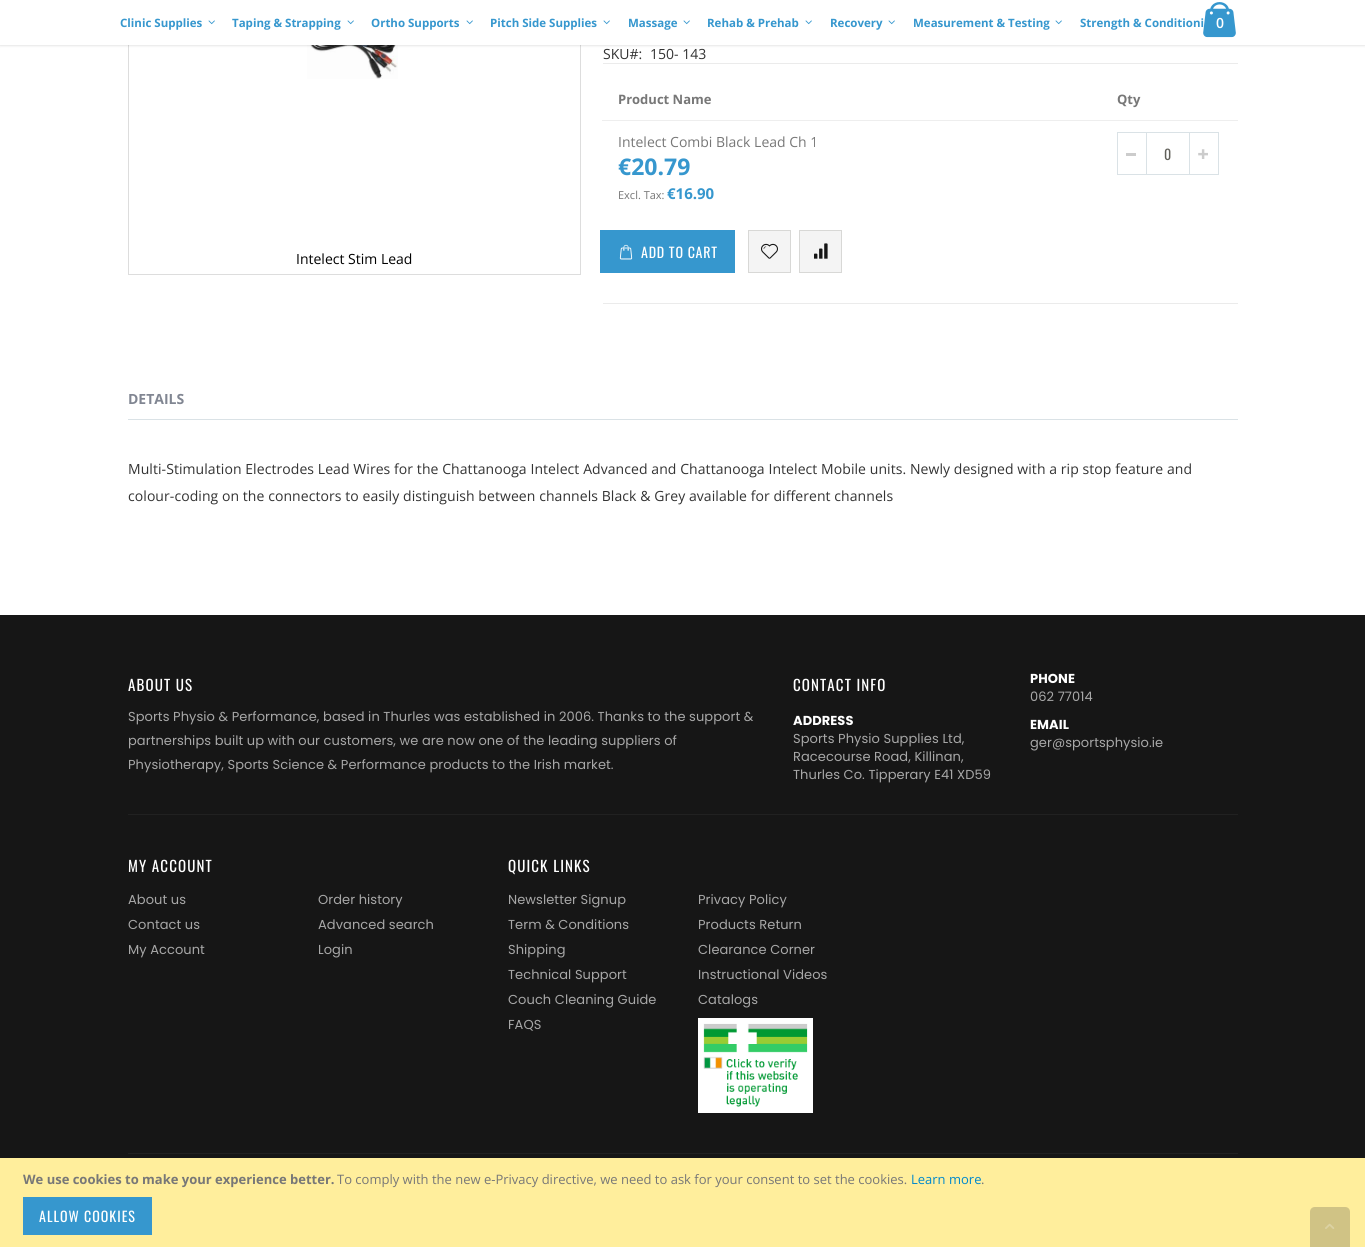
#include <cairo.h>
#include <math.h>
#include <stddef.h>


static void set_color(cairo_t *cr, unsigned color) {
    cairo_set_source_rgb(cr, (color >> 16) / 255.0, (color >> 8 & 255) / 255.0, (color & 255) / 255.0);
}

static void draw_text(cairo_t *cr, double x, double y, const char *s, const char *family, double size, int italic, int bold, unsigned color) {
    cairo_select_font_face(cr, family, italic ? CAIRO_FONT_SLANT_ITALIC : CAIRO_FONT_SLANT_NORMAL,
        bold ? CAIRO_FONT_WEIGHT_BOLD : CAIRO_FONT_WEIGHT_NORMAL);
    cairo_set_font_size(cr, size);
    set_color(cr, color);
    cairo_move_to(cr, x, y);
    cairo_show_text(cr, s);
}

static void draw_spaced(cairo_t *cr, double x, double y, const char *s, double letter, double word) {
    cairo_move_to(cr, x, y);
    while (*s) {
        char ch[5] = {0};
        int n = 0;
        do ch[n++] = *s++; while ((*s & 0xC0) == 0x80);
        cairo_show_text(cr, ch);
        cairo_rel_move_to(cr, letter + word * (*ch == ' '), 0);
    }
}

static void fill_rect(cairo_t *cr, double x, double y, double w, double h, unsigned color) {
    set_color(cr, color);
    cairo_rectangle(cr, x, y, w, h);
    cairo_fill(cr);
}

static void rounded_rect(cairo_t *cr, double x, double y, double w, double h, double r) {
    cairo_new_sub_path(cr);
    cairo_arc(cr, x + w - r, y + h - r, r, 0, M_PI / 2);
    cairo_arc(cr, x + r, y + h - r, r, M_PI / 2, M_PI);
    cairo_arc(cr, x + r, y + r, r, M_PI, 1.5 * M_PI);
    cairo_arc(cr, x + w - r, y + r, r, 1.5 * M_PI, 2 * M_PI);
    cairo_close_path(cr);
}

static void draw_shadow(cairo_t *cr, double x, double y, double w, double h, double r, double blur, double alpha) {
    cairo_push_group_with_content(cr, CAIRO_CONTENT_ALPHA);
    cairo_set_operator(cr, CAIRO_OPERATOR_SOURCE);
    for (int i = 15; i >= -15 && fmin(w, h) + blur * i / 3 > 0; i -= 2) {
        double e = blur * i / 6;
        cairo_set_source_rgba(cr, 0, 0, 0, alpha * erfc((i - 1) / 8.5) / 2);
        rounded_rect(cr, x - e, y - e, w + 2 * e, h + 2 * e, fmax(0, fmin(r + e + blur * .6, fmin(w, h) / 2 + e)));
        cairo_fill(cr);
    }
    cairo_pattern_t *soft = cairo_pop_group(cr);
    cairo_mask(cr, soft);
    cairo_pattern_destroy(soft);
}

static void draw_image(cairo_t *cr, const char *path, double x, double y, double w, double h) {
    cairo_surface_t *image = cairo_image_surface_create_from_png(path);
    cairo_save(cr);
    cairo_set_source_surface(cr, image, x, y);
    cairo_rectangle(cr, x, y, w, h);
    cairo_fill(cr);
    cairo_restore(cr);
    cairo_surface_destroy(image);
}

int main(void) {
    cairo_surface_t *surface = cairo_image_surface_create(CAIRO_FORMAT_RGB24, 1365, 1247);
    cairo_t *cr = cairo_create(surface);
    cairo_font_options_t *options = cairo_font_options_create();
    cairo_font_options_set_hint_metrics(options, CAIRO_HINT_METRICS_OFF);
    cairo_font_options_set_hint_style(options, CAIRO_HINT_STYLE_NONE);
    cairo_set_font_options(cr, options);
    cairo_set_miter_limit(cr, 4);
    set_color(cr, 0xFFFFFF);
    cairo_paint(cr);
    cairo_rectangle(cr, 128.5, -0.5, 452, 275);
    set_color(cr, 0xDDDDDD);
    cairo_set_line_width(cr, 1);
    cairo_stroke(cr);
    draw_image(cr, "assets/img3.png", 307, 45, 91, 34);
    set_color(cr, 0x000000);
    draw_shadow(cr, 0, 1, 1365, 45, 0, 1, 0.1);
    fill_rect(cr, 0, 0, 1365, 45, 0xFFFFFF);
    draw_text(cr, 120, 27, "Clinic Supplies", "Open Sans", 11.5, 0, 1, 0x3697CE);
    draw_image(cr, "assets/img1.png", 208, 20, 7, 5);
    draw_text(cr, 232, 27, "Taping & Strapping", "Open Sans", 11.5, 0, 1, 0x3697CE);
    draw_image(cr, "assets/img1.png", 347, 20, 7, 5);
    draw_text(cr, 371, 27, "Ortho Supports", "Open Sans", 11.5, 0, 1, 0x3697CE);
    draw_image(cr, "assets/img1.png", 466, 20, 7, 5);
    draw_text(cr, 490, 27, "Pitch Side Supplies", "Open Sans", 11.5, 0, 1, 0x3697CE);
    draw_image(cr, "assets/img1.png", 603, 20, 7, 5);
    draw_text(cr, 628, 27, "Massage", "Open Sans", 11.5, 0, 1, 0x3697CE);
    draw_image(cr, "assets/img1.png", 683, 20, 7, 5);
    draw_text(cr, 707, 27, "Rehab & Prehab", "Open Sans", 11.5, 0, 1, 0x3697CE);
    draw_image(cr, "assets/img1.png", 805, 20, 7, 5);
    draw_text(cr, 830, 27, "Recovery", "Open Sans", 11.5, 0, 1, 0x3697CE);
    draw_image(cr, "assets/img1.png", 888, 20, 7, 5);
    draw_text(cr, 913, 27, "Measurement & Testing", "Open Sans", 11.5, 0, 1, 0x3697CE);
    draw_image(cr, "assets/img1.png", 1055, 20, 7, 5);
    draw_text(cr, 1080, 27, "Strength & Conditioni", "Open Sans", 11.5, 0, 1, 0x3697CE);
    draw_image(cr, "assets/img2.png", 1203, 2, 33, 36);
    draw_text(cr, 1216, 28, "0", "Open Sans SemiBold", 14, 0, 0, 0xFFFFFF);
    draw_text(cr, 296, 264, "Intelect Stim Lead", "Open Sans", 14, 0, 0, 0x000000);
    fill_rect(cr, 603, 63, 635, 1, 0xEBEBEB);
    draw_text(cr, 603, 59, "SKU#:", "Open Sans", 14, 0, 0, 0x333333);
    draw_text(cr, 650, 59, "150- 143", "Open Sans", 14, 0, 0, 0x333333);
    draw_text(cr, 618, 104, "Product Name", "Open Sans", 13, 0, 1, 0x777777);
    draw_text(cr, 1117, 104, "Qty", "Open Sans", 13, 0, 1, 0x777777);
    draw_text(cr, 618, 147, "Intelect Combi Black Lead Ch 1", "Open Sans", 14, 0, 0, 0x777777);
    draw_text(cr, 618, 175, "€20.79", "Open Sans", 23, 0, 1, 0x3697CE);
    draw_text(cr, 618, 199, "Excl. Tax:", "Open Sans", 11, 0, 0, 0x777777);
    draw_text(cr, 667, 199, "€16.90", "Open Sans", 15, 0, 1, 0x3697CE);
    fill_rect(cr, 602, 120, 636, 1, 0xEEEEEE);
    cairo_rectangle(cr, 1146.5, 132.5, 43, 42);
    set_color(cr, 0xDAE2E6);
    cairo_stroke(cr);
    cairo_rectangle(cr, 1117.5, 132.5, 29, 42);
    cairo_stroke(cr);
    fill_rect(cr, 1126, 153, 10, 3, 0xCCCCCC);
    cairo_rectangle(cr, 1189.5, 132.5, 29, 42);
    set_color(cr, 0xDAE2E6);
    cairo_stroke(cr);
    draw_image(cr, "assets/img4.png", 1198, 149, 10, 10);
    draw_text(cr, 1164, 160, "0", "Oswald", 14, 0, 0, 0x61605A);
    fill_rect(cr, 600, 230, 135, 43, 0x3697CE);
    draw_image(cr, "assets/img5.png", 619, 244, 14, 16);
    set_color(cr, 0xFFFFFF);
    draw_spaced(cr, 641, 258, "ADD TO CART", 0.75, 0);
    set_color(cr, 0xF4F4F4);
    cairo_rectangle(cr, 748.5, 230.5, 42, 42);
    cairo_fill_preserve(cr);
    set_color(cr, 0xD8D8D6);
    cairo_stroke(cr);
    draw_image(cr, "assets/img6.png", 761, 243, 17, 16);
    set_color(cr, 0xF4F4F4);
    cairo_rectangle(cr, 799.5, 230.5, 42, 42);
    cairo_fill_preserve(cr);
    set_color(cr, 0xD8D8D6);
    cairo_stroke(cr);
    draw_image(cr, "assets/img7.png", 814, 243, 14, 16);
    fill_rect(cr, 603, 303, 635, 1, 0xEBEBEB);
    draw_text(cr, 128, 404, "DETAILS", "Open Sans", 14, 0, 1, 0x818692);
    fill_rect(cr, 128, 419, 1110, 1, 0xDAE2E6);
    cairo_select_font_face(cr, "Open Sans", CAIRO_FONT_SLANT_NORMAL, CAIRO_FONT_WEIGHT_NORMAL);
    set_color(cr, 0x333333);
    draw_spaced(cr, 128, 474, "Multi-Stimulation Electrodes Lead Wires for the Chattanooga Intelect Advanced and Chattanooga Intelect Mobile units. Newly designed with a rip stop feature and", 0.07, 0);
    draw_spaced(cr, 128, 501, "colour-coding on the connectors to easily distinguish between channels Black & Grey available for different channels", 0.07, 0);
    fill_rect(cr, 0, 615, 1365, 543, 0x161616);
    cairo_select_font_face(cr, "Oswald", CAIRO_FONT_SLANT_NORMAL, CAIRO_FONT_WEIGHT_NORMAL);
    cairo_set_font_size(cr, 15);
    set_color(cr, 0xFFFFFF);
    draw_spaced(cr, 128, 691, "ABOUT US", 1.1, 0);
    cairo_select_font_face(cr, "Poppins", CAIRO_FONT_SLANT_NORMAL, CAIRO_FONT_WEIGHT_NORMAL);
    cairo_set_font_size(cr, 13);
    set_color(cr, 0xA8A8A8);
    draw_spaced(cr, 128, 721, "Sports Physio & Performance, based in Thurles was established in 2006. Thanks to the support &", 0.07, 0);
    draw_spaced(cr, 128, 745, "partnerships built up with our customers, we are now one of the leading suppliers of", 0.07, 0);
    draw_spaced(cr, 128, 769, "Physiotherapy, Sports Science & Performance products to the Irish market.", 0.07, 0);
    cairo_select_font_face(cr, "Poppins", CAIRO_FONT_SLANT_NORMAL, CAIRO_FONT_WEIGHT_BOLD);
    set_color(cr, 0xFFFFFF);
    draw_spaced(cr, 793, 725, "ADDRESS", 0.07, 0);
    cairo_select_font_face(cr, "Poppins", CAIRO_FONT_SLANT_NORMAL, CAIRO_FONT_WEIGHT_NORMAL);
    set_color(cr, 0xA8A8A8);
    draw_spaced(cr, 793, 743, "Sports Physio Supplies Ltd,", 0.07, 0);
    draw_spaced(cr, 793, 761, "Racecourse Road, Killinan,", 0.07, 0);
    draw_spaced(cr, 793, 779, "Thurles Co. Tipperary E41 XD59", 0.07, 0);
    cairo_select_font_face(cr, "Poppins", CAIRO_FONT_SLANT_NORMAL, CAIRO_FONT_WEIGHT_BOLD);
    set_color(cr, 0xFFFFFF);
    draw_spaced(cr, 1030, 683, "PHONE", 0.07, 0);
    cairo_select_font_face(cr, "Poppins", CAIRO_FONT_SLANT_NORMAL, CAIRO_FONT_WEIGHT_NORMAL);
    set_color(cr, 0xA8A8A8);
    draw_spaced(cr, 1030, 701, "062 77014", 0.07, 0);
    cairo_select_font_face(cr, "Poppins", CAIRO_FONT_SLANT_NORMAL, CAIRO_FONT_WEIGHT_BOLD);
    set_color(cr, 0xFFFFFF);
    draw_spaced(cr, 1030, 729, "EMAIL", 0.07, 0);
    cairo_select_font_face(cr, "Poppins", CAIRO_FONT_SLANT_NORMAL, CAIRO_FONT_WEIGHT_NORMAL);
    set_color(cr, 0xA8A8A8);
    draw_spaced(cr, 1030, 747, "ger@sportsphysio.ie", 0.07, 0);
    cairo_select_font_face(cr, "Oswald", CAIRO_FONT_SLANT_NORMAL, CAIRO_FONT_WEIGHT_NORMAL);
    cairo_set_font_size(cr, 15);
    set_color(cr, 0xFFFFFF);
    draw_spaced(cr, 793, 691, "CONTACT INFO", 1.1, 0);
    fill_rect(cr, 128, 814, 1110, 1, 0x212121);
    set_color(cr, 0xFFFFFF);
    draw_spaced(cr, 128, 872, "MY ACCOUNT", 1.1, 0);
    cairo_select_font_face(cr, "Poppins", CAIRO_FONT_SLANT_NORMAL, CAIRO_FONT_WEIGHT_NORMAL);
    cairo_set_font_size(cr, 13);
    set_color(cr, 0xA8A8A8);
    draw_spaced(cr, 128, 904, "About us", 0.07, 0);
    draw_spaced(cr, 128, 929, "Contact us", 0.07, 0);
    draw_spaced(cr, 128, 954, "My Account", 0.07, 0);
    draw_spaced(cr, 318, 904, "Order history", 0.07, 0);
    draw_spaced(cr, 318, 929, "Advanced search", 0.07, 0);
    draw_spaced(cr, 318, 954, "Login", 0.07, 0);
    cairo_select_font_face(cr, "Oswald", CAIRO_FONT_SLANT_NORMAL, CAIRO_FONT_WEIGHT_NORMAL);
    cairo_set_font_size(cr, 15);
    set_color(cr, 0xFFFFFF);
    draw_spaced(cr, 508, 872, "QUICK LINKS", 1.1, 0);
    cairo_select_font_face(cr, "Poppins", CAIRO_FONT_SLANT_NORMAL, CAIRO_FONT_WEIGHT_NORMAL);
    cairo_set_font_size(cr, 13);
    set_color(cr, 0xA8A8A8);
    draw_spaced(cr, 508, 904, "Newsletter Signup", 0.07, 0);
    draw_spaced(cr, 508, 929, "Term & Conditions", 0.07, 0);
    draw_spaced(cr, 508, 954, "Shipping", 0.07, 0);
    draw_spaced(cr, 508, 979, "Technical Support", 0.07, 0);
    draw_spaced(cr, 508, 1004, "Couch Cleaning Guide", 0.07, 0);
    draw_spaced(cr, 508, 1029, "FAQS", 0.07, 0);
    draw_spaced(cr, 698, 904, "Privacy Policy", 0.07, 0);
    draw_spaced(cr, 698, 929, "Products Return", 0.07, 0);
    draw_spaced(cr, 698, 954, "Clearance Corner", 0.07, 0);
    draw_spaced(cr, 698, 979, "Instructional Videos", 0.07, 0);
    draw_spaced(cr, 698, 1004, "Catalogs", 0.07, 0);
    draw_image(cr, "assets/img8.png", 698, 1018, 115, 95);
    fill_rect(cr, 128, 1153, 1110, 1, 0x212121);
    fill_rect(cr, 0, 1158, 1365, 89, 0xFFEE9C);
    set_color(cr, 0xD0C385);
    cairo_new_path(cr);
    cairo_move_to(cr, 1315, 1207);
    cairo_line_to(cr, 1345, 1207);
    cairo_curve_to(cr, 1348, 1207, 1350, 1209, 1350, 1212);
    cairo_line_to(cr, 1350, 1247);
    cairo_line_to(cr, 1310, 1247);
    cairo_line_to(cr, 1310, 1212);
    cairo_curve_to(cr, 1310, 1209, 1312, 1207, 1315, 1207);
    cairo_close_path(cr);
    cairo_fill(cr);
    draw_image(cr, "assets/img9.png", 1325, 1223, 10, 6);
    draw_text(cr, 23, 1184, "We use cookies to make your experience better.", "Open Sans", 13, 0, 1, 0x777777);
    draw_text(cr, 337, 1184, "To comply with the new e-Privacy directive, we need to ask for your consent to set the cookies.", "Open Sans", 13, 0, 0, 0x777777);
    draw_text(cr, 911, 1184, "Learn more", "Open Sans", 13, 0, 0, 0x0088CC);
    draw_text(cr, 981, 1184, ".", "Open Sans", 13, 0, 0, 0x777777);
    fill_rect(cr, 23, 1197, 129, 38, 0x3697CE);
    cairo_select_font_face(cr, "Oswald", CAIRO_FONT_SLANT_NORMAL, CAIRO_FONT_WEIGHT_NORMAL);
    cairo_set_font_size(cr, 14);
    set_color(cr, 0xFFFFFF);
    draw_spaced(cr, 39, 1222, "ALLOW COOKIES", 1, 0);
    cairo_surface_write_to_png(surface, "output.png");
    cairo_font_options_destroy(options);
    cairo_destroy(cr);
    cairo_surface_destroy(surface);
    return 0;
}
